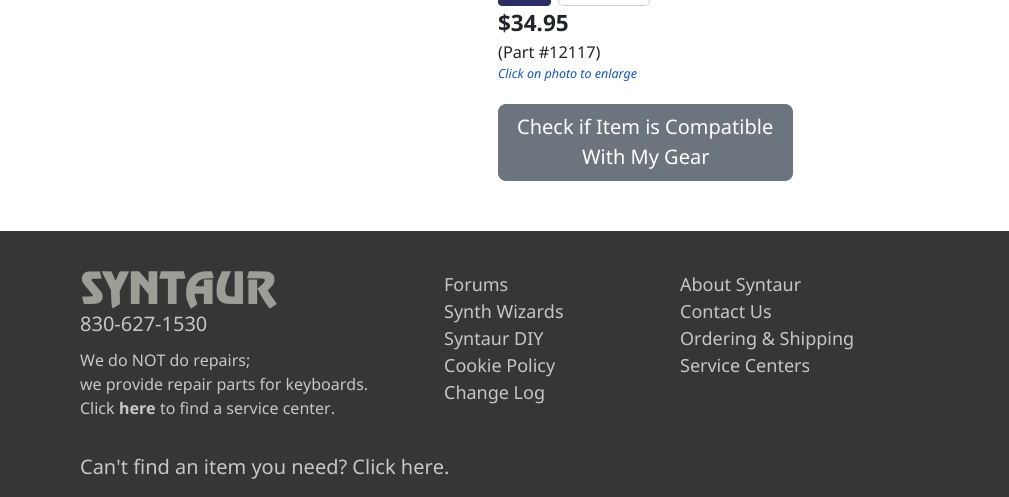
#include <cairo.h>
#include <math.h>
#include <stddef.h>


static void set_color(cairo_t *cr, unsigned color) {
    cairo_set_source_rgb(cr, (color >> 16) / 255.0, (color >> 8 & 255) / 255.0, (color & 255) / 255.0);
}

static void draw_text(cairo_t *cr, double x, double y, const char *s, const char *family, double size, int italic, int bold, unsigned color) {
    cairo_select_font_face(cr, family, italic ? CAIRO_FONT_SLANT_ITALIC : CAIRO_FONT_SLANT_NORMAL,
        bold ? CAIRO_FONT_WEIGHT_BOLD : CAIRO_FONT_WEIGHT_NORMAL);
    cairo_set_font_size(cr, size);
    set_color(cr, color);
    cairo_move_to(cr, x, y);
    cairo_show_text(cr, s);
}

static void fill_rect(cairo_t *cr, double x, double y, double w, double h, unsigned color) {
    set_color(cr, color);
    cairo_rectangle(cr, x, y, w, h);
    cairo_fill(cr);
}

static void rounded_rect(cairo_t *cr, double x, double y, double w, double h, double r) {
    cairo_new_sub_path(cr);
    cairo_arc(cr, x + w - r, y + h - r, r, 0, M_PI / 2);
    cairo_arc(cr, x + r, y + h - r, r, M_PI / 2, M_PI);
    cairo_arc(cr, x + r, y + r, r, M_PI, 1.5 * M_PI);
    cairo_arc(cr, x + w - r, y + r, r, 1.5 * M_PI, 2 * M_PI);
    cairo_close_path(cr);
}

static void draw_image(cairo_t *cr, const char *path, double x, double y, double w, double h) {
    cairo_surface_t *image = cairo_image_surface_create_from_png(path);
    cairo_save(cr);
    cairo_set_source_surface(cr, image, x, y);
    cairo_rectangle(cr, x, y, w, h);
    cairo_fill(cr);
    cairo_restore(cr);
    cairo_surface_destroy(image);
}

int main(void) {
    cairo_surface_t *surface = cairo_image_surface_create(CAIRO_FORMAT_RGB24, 1009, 497);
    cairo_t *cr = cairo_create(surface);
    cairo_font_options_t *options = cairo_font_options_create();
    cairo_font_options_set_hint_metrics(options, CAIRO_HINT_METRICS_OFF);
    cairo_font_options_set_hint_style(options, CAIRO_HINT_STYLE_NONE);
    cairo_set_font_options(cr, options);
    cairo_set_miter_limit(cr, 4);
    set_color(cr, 0xFFFFFF);
    cairo_paint(cr);
    set_color(cr, 0x2C2D65);
    rounded_rect(cr, 498, -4, 53, 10, 4);
    cairo_fill(cr);
    rounded_rect(cr, 558.5, -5.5, 91, 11, 4.5);
    set_color(cr, 0xCED4DA);
    cairo_set_line_width(cr, 1);
    cairo_stroke(cr);
    draw_text(cr, 498, 31, "$34.95", "Noto Sans", 22.5, 0, 1, 0x212529);
    draw_text(cr, 498, 58, "(Part #12117)", "Noto Sans", 16.25, 0, 0, 0x212529);
    draw_text(cr, 498, 78, "Click on photo to enlarge", "Noto Sans", 12.5, 1, 0, 0x1553BC);
    set_color(cr, 0x6C757D);
    rounded_rect(cr, 498.5, 104.5, 294, 76, 7.5);
    cairo_fill_preserve(cr);
    cairo_stroke(cr);
    draw_text(cr, 517, 134, "Check if Item is Compatible", "Noto Sans", 20, 0, 0, 0xFFFFFF);
    draw_text(cr, 582, 164, "With My Gear", "Noto Sans", 20, 0, 0, 0xFFFFFF);
    fill_rect(cr, 0, 231, 1009, 266, 0x363636);
    draw_image(cr, "assets/img1.png", 81, 271, 196, 38);
    draw_text(cr, 80, 331, "830-627-1530", "Noto Sans", 20, 0, 0, 0xC6C6C6);
    draw_text(cr, 80, 366, "We do NOT do repairs;", "Noto Sans", 16, 0, 0, 0xC6C6C6);
    draw_text(cr, 80, 390, "we provide repair parts for keyboards.", "Noto Sans", 16, 0, 0, 0xC6C6C6);
    draw_text(cr, 80, 414, "Click", "Noto Sans", 16, 0, 0, 0xC6C6C6);
    draw_text(cr, 119, 414, "here", "Noto Sans", 16, 0, 1, 0xC6C6C6);
    draw_text(cr, 160, 414, "to find a service center.", "Noto Sans", 16, 0, 0, 0xC6C6C6);
    draw_text(cr, 444, 291, "Forums", "Noto Sans", 18, 0, 0, 0xC6C6C6);
    draw_text(cr, 444, 318, "Synth Wizards", "Noto Sans", 18, 0, 0, 0xC6C6C6);
    draw_text(cr, 444, 345, "Syntaur DIY", "Noto Sans", 18, 0, 0, 0xC6C6C6);
    draw_text(cr, 444, 372, "Cookie Policy", "Noto Sans", 18, 0, 0, 0xC6C6C6);
    draw_text(cr, 444, 399, "Change Log", "Noto Sans", 18, 0, 0, 0xC6C6C6);
    draw_text(cr, 680, 291, "About Syntaur", "Noto Sans", 18, 0, 0, 0xC6C6C6);
    draw_text(cr, 680, 318, "Contact Us", "Noto Sans", 18, 0, 0, 0xC6C6C6);
    draw_text(cr, 680, 345, "Ordering & Shipping", "Noto Sans", 18, 0, 0, 0xC6C6C6);
    draw_text(cr, 680, 372, "Service Centers", "Noto Sans", 18, 0, 0, 0xC6C6C6);
    draw_text(cr, 80, 474, "Can't find an item you need? Click here.", "Noto Sans", 20, 0, 0, 0xC6C6C6);
    cairo_surface_write_to_png(surface, "output.png");
    cairo_font_options_destroy(options);
    cairo_destroy(cr);
    cairo_surface_destroy(surface);
    return 0;
}
